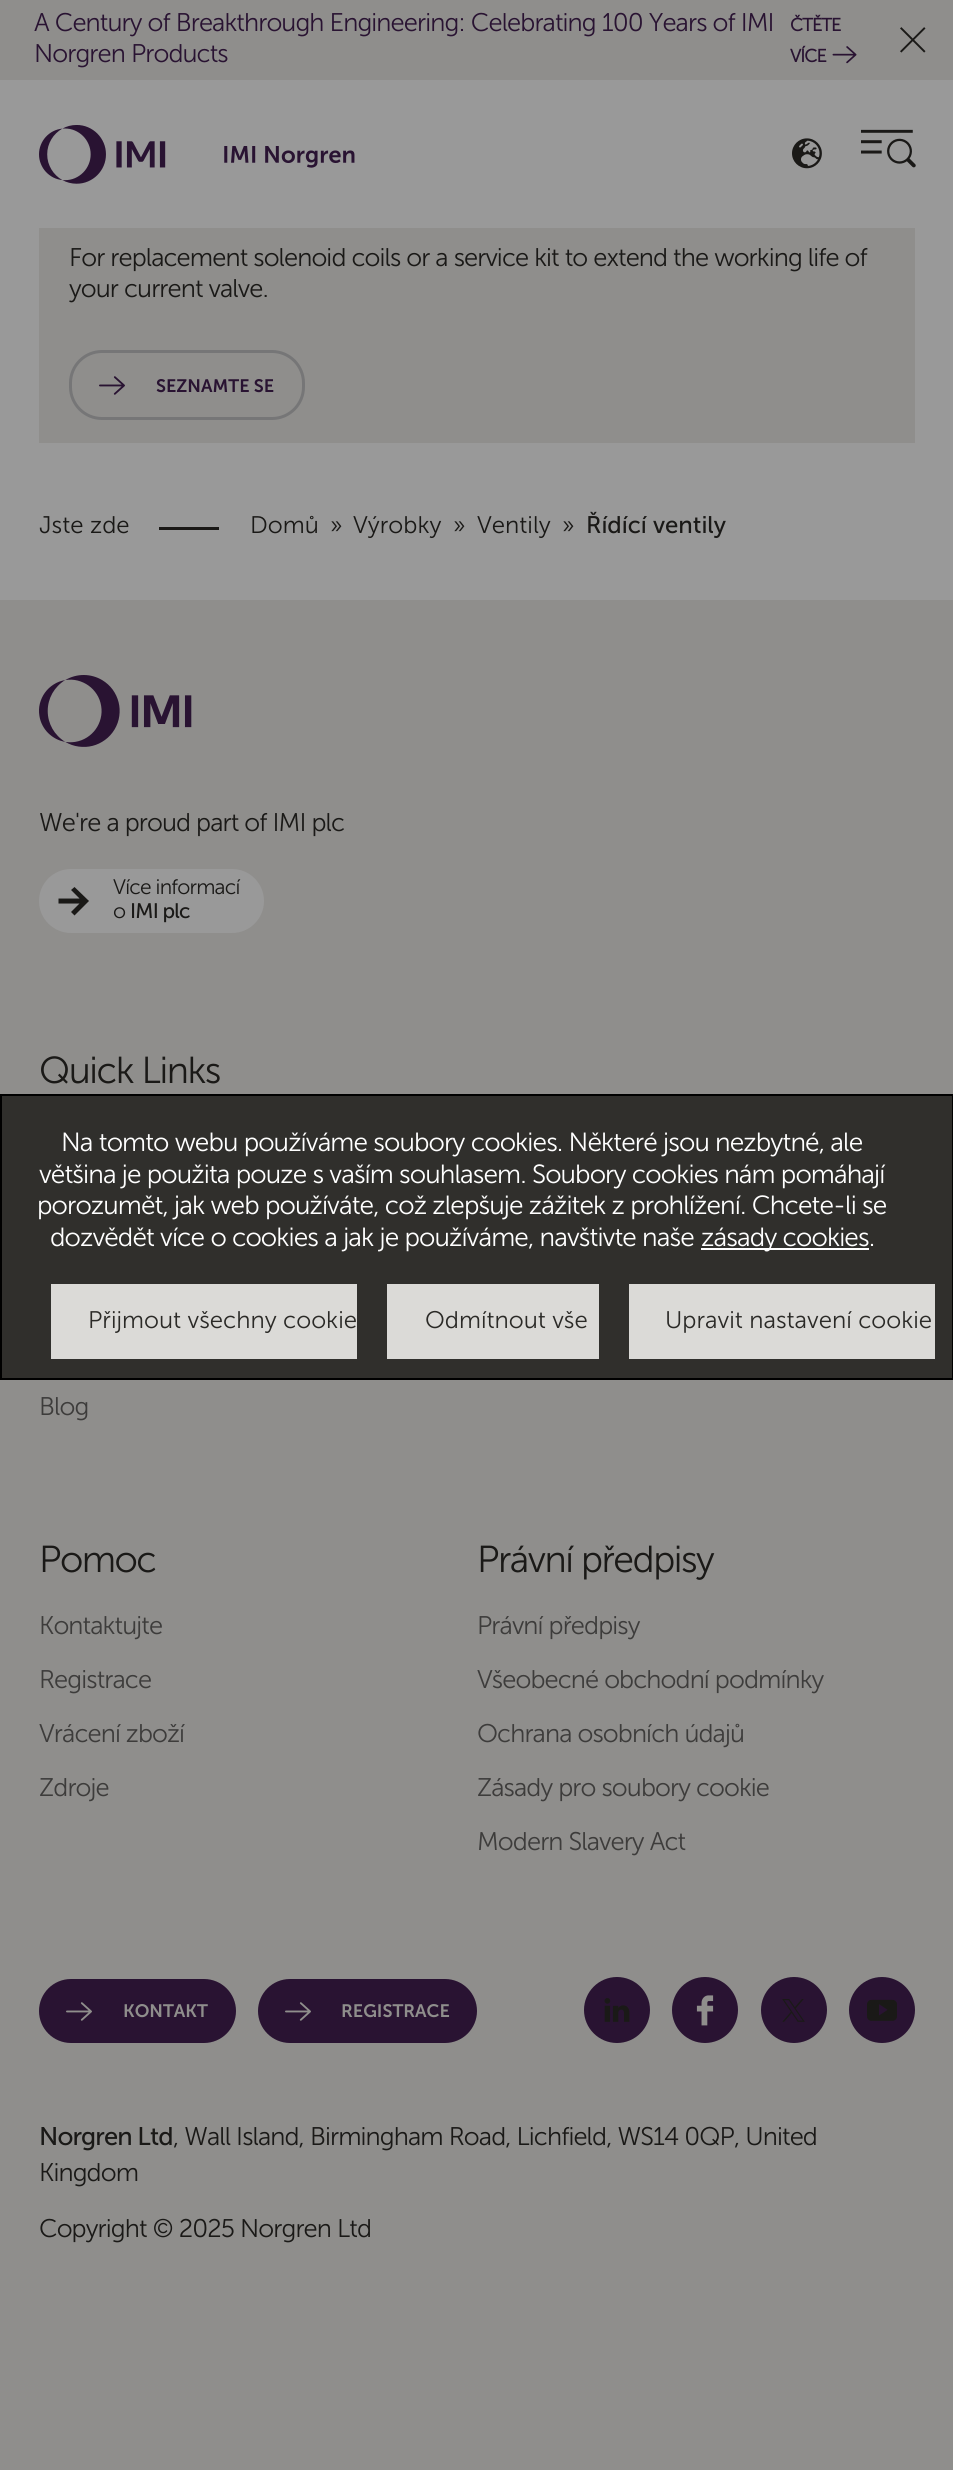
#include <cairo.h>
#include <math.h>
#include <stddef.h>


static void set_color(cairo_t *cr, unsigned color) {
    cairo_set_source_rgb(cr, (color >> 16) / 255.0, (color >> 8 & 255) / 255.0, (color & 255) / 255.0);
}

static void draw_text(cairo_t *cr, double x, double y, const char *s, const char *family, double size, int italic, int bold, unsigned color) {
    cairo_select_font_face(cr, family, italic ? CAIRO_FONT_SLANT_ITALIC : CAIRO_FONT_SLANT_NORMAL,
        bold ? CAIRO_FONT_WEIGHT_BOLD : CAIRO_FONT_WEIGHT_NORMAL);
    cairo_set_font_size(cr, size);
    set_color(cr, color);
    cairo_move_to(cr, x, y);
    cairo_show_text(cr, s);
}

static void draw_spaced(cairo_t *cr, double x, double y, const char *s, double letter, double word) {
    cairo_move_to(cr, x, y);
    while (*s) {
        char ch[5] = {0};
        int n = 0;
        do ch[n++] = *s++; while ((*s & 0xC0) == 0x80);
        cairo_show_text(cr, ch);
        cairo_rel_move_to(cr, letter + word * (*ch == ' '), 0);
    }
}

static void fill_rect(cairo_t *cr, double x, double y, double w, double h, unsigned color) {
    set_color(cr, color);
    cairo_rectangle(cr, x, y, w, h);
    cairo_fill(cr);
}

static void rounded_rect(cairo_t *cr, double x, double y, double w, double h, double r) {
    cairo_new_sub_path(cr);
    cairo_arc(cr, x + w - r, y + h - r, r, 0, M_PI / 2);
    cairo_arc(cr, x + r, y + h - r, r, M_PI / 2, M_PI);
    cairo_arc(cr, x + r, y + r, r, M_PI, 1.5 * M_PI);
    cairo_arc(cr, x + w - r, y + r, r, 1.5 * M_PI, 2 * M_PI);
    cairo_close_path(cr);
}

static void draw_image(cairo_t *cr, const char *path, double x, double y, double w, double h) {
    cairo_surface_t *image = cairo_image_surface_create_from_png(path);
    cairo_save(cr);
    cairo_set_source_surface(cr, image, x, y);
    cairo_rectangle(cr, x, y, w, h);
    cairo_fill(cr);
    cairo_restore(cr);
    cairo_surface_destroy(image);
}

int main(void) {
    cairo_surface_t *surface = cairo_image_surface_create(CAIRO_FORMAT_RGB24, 953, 2470);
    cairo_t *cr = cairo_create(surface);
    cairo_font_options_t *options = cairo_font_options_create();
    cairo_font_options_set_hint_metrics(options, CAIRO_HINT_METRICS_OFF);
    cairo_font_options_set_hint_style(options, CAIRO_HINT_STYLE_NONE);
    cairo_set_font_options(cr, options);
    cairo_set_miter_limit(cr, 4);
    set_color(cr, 0x999999);
    cairo_paint(cr);
    fill_rect(cr, 0, 0, 953, 80, 0x8F8E8C);
    cairo_select_font_face(cr, "Museo Sans Light", CAIRO_FONT_SLANT_NORMAL, CAIRO_FONT_WEIGHT_NORMAL);
    cairo_set_font_size(cr, 25.5);
    set_color(cr, 0x291332);
    draw_spaced(cr, 34, 31, "A Century of Breakthrough Engineering: Celebrating 100 Years of IMI", -0.9, 0);
    draw_spaced(cr, 34, 62, "Norgren Products", -0.9, 0);
    cairo_select_font_face(cr, "Museo Sans", CAIRO_FONT_SLANT_NORMAL, CAIRO_FONT_WEIGHT_BOLD);
    cairo_set_font_size(cr, 18);
    draw_spaced(cr, 790, 31, "ČTĚTE", -0.9, 0);
    draw_spaced(cr, 790, 62, "VÍCE", -0.9, 0);
    draw_image(cr, "assets/img1.png", 832, 46, 25, 18);
    draw_image(cr, "assets/img2.png", 900, 27, 26, 26);
    draw_image(cr, "assets/img3.png", 39, 125, 316, 59);
    draw_image(cr, "assets/img4.png", 792, 138, 30, 31);
    draw_image(cr, "assets/img5.png", 861, 129, 55, 39);
    fill_rect(cr, 39, 228, 876, 215, 0x8F8E8C);
    cairo_select_font_face(cr, "Museo Sans Light", CAIRO_FONT_SLANT_NORMAL, CAIRO_FONT_WEIGHT_NORMAL);
    cairo_set_font_size(cr, 25.5);
    set_color(cr, 0x1A1917);
    draw_spaced(cr, 69, 266, "For replacement solenoid coils or a service kit to extend the working life of", -0.9, 0);
    draw_spaced(cr, 69, 297, "your current valve.", -0.9, 0);
    rounded_rect(cr, 70.5, 351.5, 233, 67, 31.5);
    set_color(cr, 0x767677);
    cairo_set_line_width(cr, 3);
    cairo_stroke(cr);
    draw_image(cr, "assets/img6.png", 99, 376, 26, 19);
    draw_text(cr, 156, 392, "SEZNAMTE SE", "Museo Sans SemiBold", 18, 0, 0, 0x291332);
    draw_text(cr, 39, 533, "Jste zde", "Museo Sans Light", 24, 0, 0, 0x1A1917);
    fill_rect(cr, 159, 527, 60, 3, 0x1A1917);
    draw_text(cr, 250, 533, "Domů", "Museo Sans Light", 24, 0, 0, 0x1A1917);
    draw_text(cr, 330, 533, "»", "Museo Sans Light", 24, 0, 0, 0x1A1917);
    draw_text(cr, 353, 533, "Výrobky", "Museo Sans Light", 24, 0, 0, 0x1A1917);
    draw_text(cr, 453, 533, "»", "Museo Sans Light", 24, 0, 0, 0x1A1917);
    draw_text(cr, 477, 533, "Ventily", "Museo Sans Light", 24, 0, 0, 0x1A1917);
    draw_text(cr, 562, 533, "»", "Museo Sans Light", 24, 0, 0, 0x1A1917);
    draw_text(cr, 586, 533, "Řídící ventily", "Museo Sans", 24, 0, 0, 0x1A1917);
    fill_rect(cr, 0, 600, 953, 1870, 0x8F8E8C);
    draw_image(cr, "assets/img7.png", 39, 675, 153, 72);
    cairo_select_font_face(cr, "Museo Sans Light", CAIRO_FONT_SLANT_NORMAL, CAIRO_FONT_WEIGHT_NORMAL);
    cairo_set_font_size(cr, 25.5);
    set_color(cr, 0x1A1917);
    draw_spaced(cr, 39, 831, "We're a proud part of IMI plc", -0.9, 0);
    set_color(cr, 0x999999);
    rounded_rect(cr, 39, 869, 225, 64, 32);
    cairo_fill(cr);
    set_color(cr, 0x1A1917);
    cairo_new_path(cr);
    cairo_move_to(cr, 74.5, 887);
    cairo_line_to(cr, 89, 901);
    cairo_line_to(cr, 74.5, 915.5);
    cairo_line_to(cr, 71, 912);
    cairo_line_to(cr, 79.5, 903.5);
    cairo_line_to(cr, 58.5, 903.5);
    cairo_line_to(cr, 58.5, 898.5);
    cairo_line_to(cr, 79.5, 898.5);
    cairo_line_to(cr, 71, 890);
    cairo_close_path(cr);
    cairo_fill(cr);
    cairo_set_font_size(cr, 21);
    draw_spaced(cr, 113, 894, "Více informací", -0.8, 0);
    draw_spaced(cr, 113, 918, "o", -0.8, 0);
    cairo_select_font_face(cr, "Museo Sans", CAIRO_FONT_SLANT_NORMAL, CAIRO_FONT_WEIGHT_NORMAL);
    draw_spaced(cr, 130, 918, "IMI plc", -0.8, 0);
    cairo_select_font_face(cr, "Museo Sans Light", CAIRO_FONT_SLANT_NORMAL, CAIRO_FONT_WEIGHT_NORMAL);
    cairo_set_font_size(cr, 37.5);
    draw_spaced(cr, 39, 1083, "Quick Links", -1.5, 0);
    cairo_set_font_size(cr, 25.5);
    set_color(cr, 0x3D3C3B);
    draw_spaced(cr, 39, 1415, "Blog", -0.9, 0);
    cairo_set_font_size(cr, 37.5);
    set_color(cr, 0x1A1917);
    draw_spaced(cr, 39, 1572, "Pomoc", -1.5, 0);
    cairo_set_font_size(cr, 25.5);
    set_color(cr, 0x3D3C3B);
    draw_spaced(cr, 39, 1634, "Kontaktujte", -0.9, 0);
    draw_spaced(cr, 39, 1688, "Registrace", -0.9, 0);
    draw_spaced(cr, 39, 1742, "Vrácení zboží", -0.9, 0);
    draw_spaced(cr, 39, 1796, "Zdroje", -0.9, 0);
    cairo_set_font_size(cr, 37.5);
    set_color(cr, 0x1A1917);
    draw_spaced(cr, 477, 1572, "Právní předpisy", -1.5, 0);
    cairo_set_font_size(cr, 25.5);
    set_color(cr, 0x3D3C3B);
    draw_spaced(cr, 477, 1634, "Právní předpisy", -0.9, 0);
    draw_spaced(cr, 477, 1688, "Všeobecné obchodní podmínky", -0.9, 0);
    draw_spaced(cr, 477, 1742, "Ochrana osobních údajů", -0.9, 0);
    draw_spaced(cr, 477, 1796, "Zásady pro soubory cookie", -0.9, 0);
    draw_spaced(cr, 477, 1850, "Modern Slavery Act", -0.9, 0);
    set_color(cr, 0x291332);
    rounded_rect(cr, 39, 1979, 197, 64, 32);
    cairo_fill(cr);
    draw_image(cr, "assets/img8.png", 66, 2002, 26, 19);
    draw_text(cr, 123, 2017, "KONTAKT", "Museo Sans SemiBold", 18, 0, 0, 0x8F8E8C);
    set_color(cr, 0x291332);
    rounded_rect(cr, 258, 1979, 219, 64, 32);
    cairo_fill(cr);
    draw_image(cr, "assets/img8.png", 285, 2002, 26, 19);
    draw_text(cr, 341, 2017, "REGISTRACE", "Museo Sans SemiBold", 18, 0, 0, 0x8F8E8C);
    set_color(cr, 0x291332);
    cairo_new_path(cr);
    cairo_arc(cr, 617, 2010, 33, 0, 2 * M_PI);
    cairo_fill(cr);
    draw_image(cr, "assets/img9.png", 604, 1998, 26, 24);
    cairo_arc(cr, 705, 2010, 33, 0, 2 * M_PI);
    cairo_fill(cr);
    draw_image(cr, "assets/img10.png", 696, 1995, 18, 31);
    cairo_arc(cr, 794, 2010, 33, 0, 2 * M_PI);
    cairo_fill(cr);
    draw_image(cr, "assets/img11.png", 782, 1999, 23, 23);
    cairo_arc(cr, 882, 2010, 33, 0, 2 * M_PI);
    cairo_fill(cr);
    draw_image(cr, "assets/img12.png", 867, 1999, 30, 22);
    cairo_select_font_face(cr, "Museo Sans", CAIRO_FONT_SLANT_NORMAL, CAIRO_FONT_WEIGHT_NORMAL);
    cairo_set_font_size(cr, 25.5);
    set_color(cr, 0x1A1917);
    draw_spaced(cr, 39, 2145, "Norgren Ltd", -0.9, 0);
    cairo_select_font_face(cr, "Museo Sans Light", CAIRO_FONT_SLANT_NORMAL, CAIRO_FONT_WEIGHT_NORMAL);
    draw_spaced(cr, 173, 2145, ", Wall Island, Birmingham Road, Lichfield, WS14 0QP, United", -0.9, 0);
    draw_spaced(cr, 39, 2181, "Kingdom", -0.9, 0);
    draw_spaced(cr, 39, 2237, "Copyright © 2025 Norgren Ltd", -0.9, 0);
    set_color(cr, 0x302F2C);
    cairo_rectangle(cr, 1, 1095, 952, 284);
    cairo_fill_preserve(cr);
    set_color(cr, 0x000000);
    cairo_set_line_width(cr, 2);
    cairo_stroke(cr);
    cairo_set_font_size(cr, 26.25);
    set_color(cr, 0xFFFFFF);
    draw_spaced(cr, 61, 1151, "Na tomto webu používáme soubory cookies. Některé jsou nezbytné, ale", -0.9, 0);
    draw_spaced(cr, 39, 1183, "většina je použita pouze s vaším souhlasem. Soubory cookies nám pomáhají", -0.9, 0);
    draw_spaced(cr, 37, 1214, "porozumět, jak web používáte, což zlepšuje zážitek z prohlížení. Chcete-li se", -0.9, 0);
    draw_spaced(cr, 50, 1246, "dozvědět více o cookies a jak je používáme, navštivte naše", -0.9, 0);
    fill_rect(cr, 701, 1248, 168, 2, 0xFFFFFF);
    draw_spaced(cr, 701, 1246, "zásady cookies.", -0.9, 0);
    cairo_set_source_rgba(cr, 0.933, 0.925, 0.918, 0.9);
    cairo_rectangle(cr, 51, 1284, 306, 75);
    cairo_fill(cr);
    draw_text(cr, 88, 1328, "Přijmout všechny cookie", "Museo Sans Light", 24, 0, 0, 0x2B2A27);
    cairo_set_source_rgba(cr, 0.933, 0.925, 0.918, 0.9);
    cairo_rectangle(cr, 387, 1284, 212, 75);
    cairo_fill(cr);
    draw_text(cr, 425, 1328, "Odmítnout vše", "Museo Sans Light", 24, 0, 0, 0x2B2A27);
    cairo_set_source_rgba(cr, 0.933, 0.925, 0.918, 0.9);
    cairo_rectangle(cr, 629, 1284, 306, 75);
    cairo_fill(cr);
    draw_text(cr, 665, 1328, "Upravit nastavení cookie", "Museo Sans Light", 24, 0, 0, 0x2B2A27);
    cairo_surface_write_to_png(surface, "output.png");
    cairo_font_options_destroy(options);
    cairo_destroy(cr);
    cairo_surface_destroy(surface);
    return 0;
}
